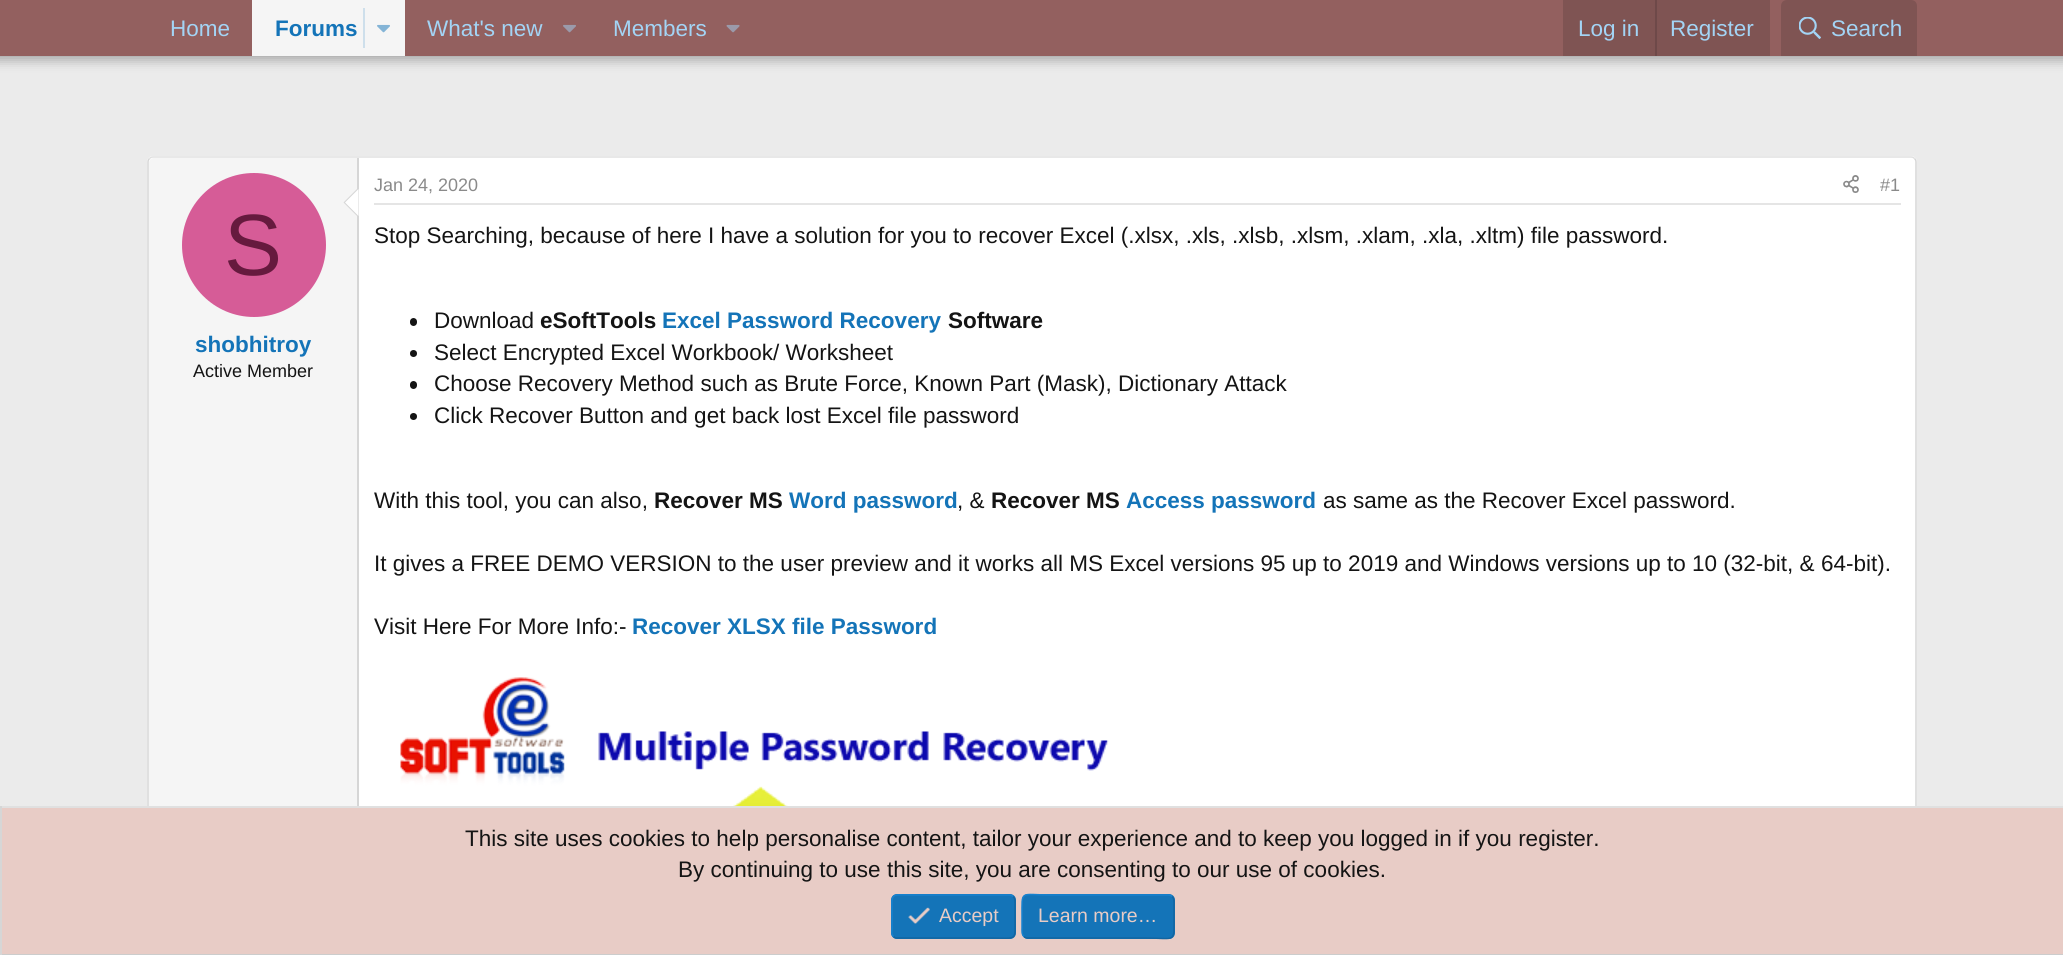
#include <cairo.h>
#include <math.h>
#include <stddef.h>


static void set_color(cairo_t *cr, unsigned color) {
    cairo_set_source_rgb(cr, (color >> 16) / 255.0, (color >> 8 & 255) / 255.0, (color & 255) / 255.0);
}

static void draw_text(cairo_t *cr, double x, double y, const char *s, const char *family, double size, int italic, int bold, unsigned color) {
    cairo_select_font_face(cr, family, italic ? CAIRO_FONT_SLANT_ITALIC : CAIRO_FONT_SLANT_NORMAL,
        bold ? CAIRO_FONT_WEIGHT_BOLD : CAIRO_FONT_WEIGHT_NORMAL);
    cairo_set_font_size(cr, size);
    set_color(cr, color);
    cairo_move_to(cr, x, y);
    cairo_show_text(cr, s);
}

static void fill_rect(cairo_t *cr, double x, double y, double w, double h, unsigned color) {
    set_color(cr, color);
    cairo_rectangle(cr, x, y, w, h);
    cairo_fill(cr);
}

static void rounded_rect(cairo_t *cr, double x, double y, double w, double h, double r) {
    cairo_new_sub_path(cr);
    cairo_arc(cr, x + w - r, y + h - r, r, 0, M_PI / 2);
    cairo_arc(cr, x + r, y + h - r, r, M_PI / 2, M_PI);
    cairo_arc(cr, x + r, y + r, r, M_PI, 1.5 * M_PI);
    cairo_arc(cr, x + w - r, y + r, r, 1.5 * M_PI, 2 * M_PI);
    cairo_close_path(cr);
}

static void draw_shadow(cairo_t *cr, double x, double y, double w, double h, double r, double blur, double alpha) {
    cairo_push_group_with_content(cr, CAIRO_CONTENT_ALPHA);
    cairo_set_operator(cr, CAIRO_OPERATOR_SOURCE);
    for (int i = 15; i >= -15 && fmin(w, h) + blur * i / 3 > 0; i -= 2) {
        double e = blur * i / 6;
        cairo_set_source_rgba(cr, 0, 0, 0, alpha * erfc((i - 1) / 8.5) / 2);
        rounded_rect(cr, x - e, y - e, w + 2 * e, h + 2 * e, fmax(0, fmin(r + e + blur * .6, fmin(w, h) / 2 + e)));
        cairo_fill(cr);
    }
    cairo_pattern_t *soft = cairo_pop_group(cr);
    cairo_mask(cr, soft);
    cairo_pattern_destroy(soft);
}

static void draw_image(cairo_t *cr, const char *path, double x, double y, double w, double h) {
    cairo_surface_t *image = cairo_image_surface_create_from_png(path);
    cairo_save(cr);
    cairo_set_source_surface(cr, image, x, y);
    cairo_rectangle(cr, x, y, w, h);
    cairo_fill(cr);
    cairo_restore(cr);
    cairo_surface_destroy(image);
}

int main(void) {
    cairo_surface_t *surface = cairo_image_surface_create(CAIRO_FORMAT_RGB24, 2063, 955);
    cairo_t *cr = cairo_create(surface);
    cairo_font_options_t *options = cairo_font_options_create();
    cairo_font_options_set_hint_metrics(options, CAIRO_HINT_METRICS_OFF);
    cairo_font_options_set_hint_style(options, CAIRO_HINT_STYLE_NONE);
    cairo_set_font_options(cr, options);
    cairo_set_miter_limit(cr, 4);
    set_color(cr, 0xEBEBEB);
    cairo_paint(cr);
    cairo_save(cr);
    cairo_set_fill_rule(cr, CAIRO_FILL_RULE_EVEN_ODD);
    cairo_new_path(cr);
    cairo_move_to(cr, 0, 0);
    cairo_line_to(cr, 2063, 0);
    cairo_line_to(cr, 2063, 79);
    cairo_line_to(cr, 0, 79);
    cairo_close_path(cr);
    cairo_move_to(cr, 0, 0);
    cairo_line_to(cr, 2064, 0);
    cairo_line_to(cr, 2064, 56);
    cairo_line_to(cr, 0, 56);
    cairo_close_path(cr);
    cairo_clip(cr);
    set_color(cr, 0x000000);
    draw_shadow(cr, -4, -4, 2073, 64, 0, 6, 0.3);
    cairo_restore(cr);
    cairo_set_source_rgba(cr, 0.455, 0.188, 0.18, 0.74);
    cairo_rectangle(cr, 0, 0, 2063, 56);
    cairo_fill(cr);
    draw_text(cr, 170, 36, "Home", "Liberation Sans", 22.5, 0, 0, 0xA3D4F5);
    fill_rect(cr, 252, 0, 153, 56, 0xF5F5F5);
    draw_text(cr, 275, 36, "Forums", "Liberation Sans", 22.5, 0, 1, 0x1474B8);
    fill_rect(cr, 363, 8, 2, 40, 0xCEDFEB);
    draw_image(cr, "assets/img1.png", 377, 24, 13, 9);
    draw_text(cr, 427, 36, "What's new", "Liberation Sans", 22.5, 0, 0, 0xA3D4F5);
    draw_image(cr, "assets/img2.png", 563, 24, 13, 9);
    draw_text(cr, 613, 36, "Members", "Liberation Sans", 22.5, 0, 0, 0xA3D4F5);
    draw_image(cr, "assets/img3.png", 726, 24, 14, 9);
    cairo_set_source_rgba(cr, 0.078, 0.078, 0.078, 0.15);
    cairo_rectangle(cr, 1563, 0, 207, 56);
    cairo_fill(cr);
    draw_text(cr, 1578, 36, "Log in", "Liberation Sans", 22.5, 0, 0, 0xA3D4F5);
    cairo_set_source_rgba(cr, 0.078, 0.078, 0.078, 0.15);
    cairo_rectangle(cr, 1655, 0, 2, 56);
    cairo_fill(cr);
    draw_text(cr, 1670, 36, "Register", "Liberation Sans", 22.5, 0, 0, 0xA3D4F5);
    cairo_set_source_rgba(cr, 0.078, 0.078, 0.078, 0.15);
    cairo_new_path(cr);
    cairo_move_to(cr, 1787, 0);
    cairo_line_to(cr, 1911, 0);
    cairo_curve_to(cr, 1914.5, 0, 1917, 2.5, 1917, 6);
    cairo_line_to(cr, 1917, 56);
    cairo_line_to(cr, 1781, 56);
    cairo_line_to(cr, 1781, 6);
    cairo_curve_to(cr, 1781, 2.5, 1783.5, 0, 1787, 0);
    cairo_close_path(cr);
    cairo_fill(cr);
    draw_image(cr, "assets/img4.png", 1799, 17, 22, 22);
    draw_text(cr, 1831, 36, "Search", "Liberation Sans", 22.5, 0, 0, 0xA3D4F5);
    set_color(cr, 0xFFFFFF);
    rounded_rect(cr, 147, 156, 1770, 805, 6);
    cairo_fill(cr);
    cairo_new_path(cr);
    cairo_move_to(cr, 149.5, 158.5);
    cairo_curve_to(cr, 150.5, 157.5, 151.5, 157, 153, 157);
    cairo_line_to(cr, 1911, 157);
    cairo_curve_to(cr, 1912.5, 157, 1913.5, 157.5, 1914.5, 158.5);
    set_color(cr, 0xE0E0E0);
    cairo_set_line_width(cr, 1.5);
    cairo_stroke(cr);
    cairo_new_path(cr);
    cairo_move_to(cr, 1914.5, 158.5);
    cairo_curve_to(cr, 1915.5, 159.5, 1916, 160.5, 1916, 162);
    cairo_line_to(cr, 1916, 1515);
    cairo_curve_to(cr, 1916, 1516.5, 1915.5, 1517.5, 1914.5, 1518.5);
    set_color(cr, 0xD6D6D6);
    cairo_stroke(cr);
    cairo_new_path(cr);
    cairo_move_to(cr, 149.5, 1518.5);
    cairo_curve_to(cr, 148.5, 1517.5, 148, 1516.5, 148, 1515);
    cairo_line_to(cr, 148, 162);
    cairo_curve_to(cr, 148, 160.5, 148.5, 159.5, 149.5, 158.5);
    cairo_stroke(cr);
    set_color(cr, 0xF5F5F5);
    cairo_new_path(cr);
    cairo_move_to(cr, 154, 158);
    cairo_line_to(cr, 359, 158);
    cairo_line_to(cr, 359, 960);
    cairo_line_to(cr, 154, 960);
    cairo_curve_to(cr, 151, 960, 149, 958, 149, 955);
    cairo_line_to(cr, 149, 163);
    cairo_curve_to(cr, 149, 160, 151, 158, 154, 158);
    cairo_close_path(cr);
    cairo_fill(cr);
    fill_rect(cr, 357, 158, 2, 648, 0xD6D6D6);
    cairo_new_path(cr);
    cairo_move_to(cr, 358.5, 187.5);
    cairo_line_to(cr, 358.5, 217.5);
    cairo_line_to(cr, 343.5, 202.5);
    cairo_close_path(cr);
    cairo_fill(cr);
    set_color(cr, 0xFFFFFF);
    cairo_new_path(cr);
    cairo_move_to(cr, 358.5, 189);
    cairo_line_to(cr, 358.5, 216);
    cairo_line_to(cr, 345, 202.5);
    cairo_close_path(cr);
    cairo_fill(cr);
    set_color(cr, 0xD65C97);
    cairo_arc(cr, 254, 245, 72, 0, 2 * M_PI);
    cairo_fill(cr);
    draw_text(cr, 224, 275, "S", "Liberation Sans", 87, 0, 0, 0x661A3E);
    draw_text(cr, 195, 352, "shobhitroy", "Liberation Sans", 22.5, 0, 1, 0x1474B8);
    draw_text(cr, 193, 377, "Active Member", "Liberation Sans", 18, 0, 0, 0x141414);
    fill_rect(cr, 374, 203, 1527, 2, 0xE5E5E5);
    draw_text(cr, 374, 191, "Jan 24, 2020", "Liberation Sans", 18, 0, 0, 0x8A8A8A);
    draw_image(cr, "assets/img5.png", 1843, 175, 16, 18);
    draw_text(cr, 1880, 191, "#1", "Liberation Sans", 18, 0, 0, 0x8A8A8A);
    draw_text(cr, 374, 243, "Stop Searching, because of here I have a solution for you to recover Excel (.xlsx, .xls, .xlsb, .xlsm, .xlam, .xla, .xltm) file password.", "Liberation Sans", 22.5, 0, 0, 0x141414);
    rounded_rect(cr, 410, 318, 7, 8, 3.5);
    cairo_fill(cr);
    draw_text(cr, 434, 328, "Download", "Liberation Sans", 22.5, 0, 0, 0x141414);
    draw_text(cr, 540, 328, "eSoftTools", "Liberation Sans", 22.5, 0, 1, 0x141414);
    draw_text(cr, 662, 328, "Excel Password Recovery", "Liberation Sans", 22.5, 0, 1, 0x1474B8);
    draw_text(cr, 948, 328, "Software", "Liberation Sans", 22.5, 0, 1, 0x141414);
    cairo_new_path(cr);
    cairo_arc(cr, 413.5, 353.5, 3.5, 0, 2 * M_PI);
    cairo_fill(cr);
    draw_text(cr, 434, 360, "Select Encrypted Excel Workbook/ Worksheet", "Liberation Sans", 22.5, 0, 0, 0x141414);
    rounded_rect(cr, 410, 381, 7, 8, 3.5);
    cairo_fill(cr);
    draw_text(cr, 434, 391, "Choose Recovery Method such as Brute Force, Known Part (Mask), Dictionary Attack", "Liberation Sans", 22.5, 0, 0, 0x141414);
    cairo_new_path(cr);
    cairo_arc(cr, 413.5, 416.5, 3.5, 0, 2 * M_PI);
    cairo_fill(cr);
    draw_text(cr, 434, 423, "Click Recover Button and get back lost Excel file password", "Liberation Sans", 22.5, 0, 0, 0x141414);
    draw_text(cr, 374, 508, "With this tool, you can also,", "Liberation Sans", 22.5, 0, 0, 0x141414);
    draw_text(cr, 654, 508, "Recover MS", "Liberation Sans", 22.5, 0, 1, 0x141414);
    draw_text(cr, 789, 508, "Word password", "Liberation Sans", 22.5, 0, 1, 0x1474B8);
    draw_text(cr, 957, 508, ", &", "Liberation Sans", 22.5, 0, 0, 0x141414);
    draw_text(cr, 991, 508, "Recover MS", "Liberation Sans", 22.5, 0, 1, 0x141414);
    draw_text(cr, 1126, 508, "Access password", "Liberation Sans", 22.5, 0, 1, 0x1474B8);
    draw_text(cr, 1323, 508, "as same as the Recover Excel password.", "Liberation Sans", 22.5, 0, 0, 0x141414);
    draw_text(cr, 374, 571, "It gives a FREE DEMO VERSION to the user preview and it works all MS Excel versions 95 up to 2019 and Windows versions up to 10 (32-bit, & 64-bit).", "Liberation Sans", 22.5, 0, 0, 0x141414);
    draw_text(cr, 374, 634, "Visit Here For More Info:-", "Liberation Sans", 22.5, 0, 0, 0x141414);
    draw_text(cr, 632, 634, "Recover XLSX file Password", "Liberation Sans", 22.5, 0, 1, 0x1474B8);
    draw_image(cr, "assets/img6.png", 400, 677, 709, 129);
    fill_rect(cr, 2, 808, 2061, 146, 0xE8CCC6);
    fill_rect(cr, 0, 806, 2063, 2, 0xE0E0E0);
    fill_rect(cr, 0, 954, 2063, 1, 0xCCCCCC);
    fill_rect(cr, 0, 806, 2, 149, 0xD6D6D6);
    draw_text(cr, 465, 846, "This site uses cookies to help personalise content, tailor your experience and to keep you logged in if you register.", "Liberation Sans", 22.5, 0, 0, 0x141414);
    draw_text(cr, 678, 877, "By continuing to use this site, you are consenting to our use of cookies.", "Liberation Sans", 22.5, 0, 0, 0x141414);
    set_color(cr, 0x1474B8);
    rounded_rect(cr, 891, 894, 125, 45, 6);
    cairo_fill(cr);
    cairo_new_path(cr);
    cairo_move_to(cr, 1013, 896.5);
    cairo_curve_to(cr, 1015.5, 898.5, 1015, 902.5, 1015, 905.5);
    cairo_line_to(cr, 1015, 916.5);
    cairo_curve_to(cr, 1015, 942, 1018, 938, 991, 938);
    cairo_line_to(cr, 897, 938);
    cairo_curve_to(cr, 895.5, 938, 894.5, 937.5, 893.5, 936.5);
    set_color(cr, 0x1265A1);
    cairo_stroke(cr);
    cairo_new_path(cr);
    cairo_move_to(cr, 893.5, 936.5);
    cairo_curve_to(cr, 891, 934.5, 892, 930.5, 892, 927.5);
    cairo_line_to(cr, 892, 916.5);
    cairo_curve_to(cr, 892, 891, 888.5, 895, 916, 895);
    cairo_line_to(cr, 1009.5, 895);
    cairo_curve_to(cr, 1011, 895, 1012, 895.5, 1013, 896.5);
    set_color(cr, 0x1782CF);
    cairo_stroke(cr);
    draw_image(cr, "assets/img7.png", 908, 907, 22, 17);
    draw_text(cr, 939, 922, "Accept", "Liberation Sans", 19.5, 0, 0, 0xE8CCC6);
    set_color(cr, 0x1474B8);
    rounded_rect(cr, 1022, 894, 153, 45, 6);
    cairo_fill(cr);
    cairo_new_path(cr);
    cairo_move_to(cr, 1172, 896.5);
    cairo_curve_to(cr, 1174.5, 898.5, 1174, 902.5, 1174, 905.5);
    cairo_line_to(cr, 1174, 916.5);
    cairo_curve_to(cr, 1174, 944, 1176.5, 938, 1145, 938);
    cairo_line_to(cr, 1027.5, 938);
    cairo_curve_to(cr, 1026, 938, 1025, 937.5, 1024, 936.5);
    set_color(cr, 0x1265A1);
    cairo_stroke(cr);
    cairo_new_path(cr);
    cairo_move_to(cr, 1024, 936.5);
    cairo_curve_to(cr, 1021.5, 934.5, 1022, 930.5, 1022, 927.5);
    cairo_line_to(cr, 1022, 916.5);
    cairo_curve_to(cr, 1022, 889, 1019.5, 895, 1051, 895);
    cairo_line_to(cr, 1168.5, 895);
    cairo_curve_to(cr, 1170, 895, 1171, 895.5, 1172, 896.5);
    set_color(cr, 0x1782CF);
    cairo_stroke(cr);
    draw_text(cr, 1038, 922, "Learn more…", "Liberation Sans", 19.5, 0, 0, 0xE8CCC6);
    cairo_surface_write_to_png(surface, "output.png");
    cairo_font_options_destroy(options);
    cairo_destroy(cr);
    cairo_surface_destroy(surface);
    return 0;
}
